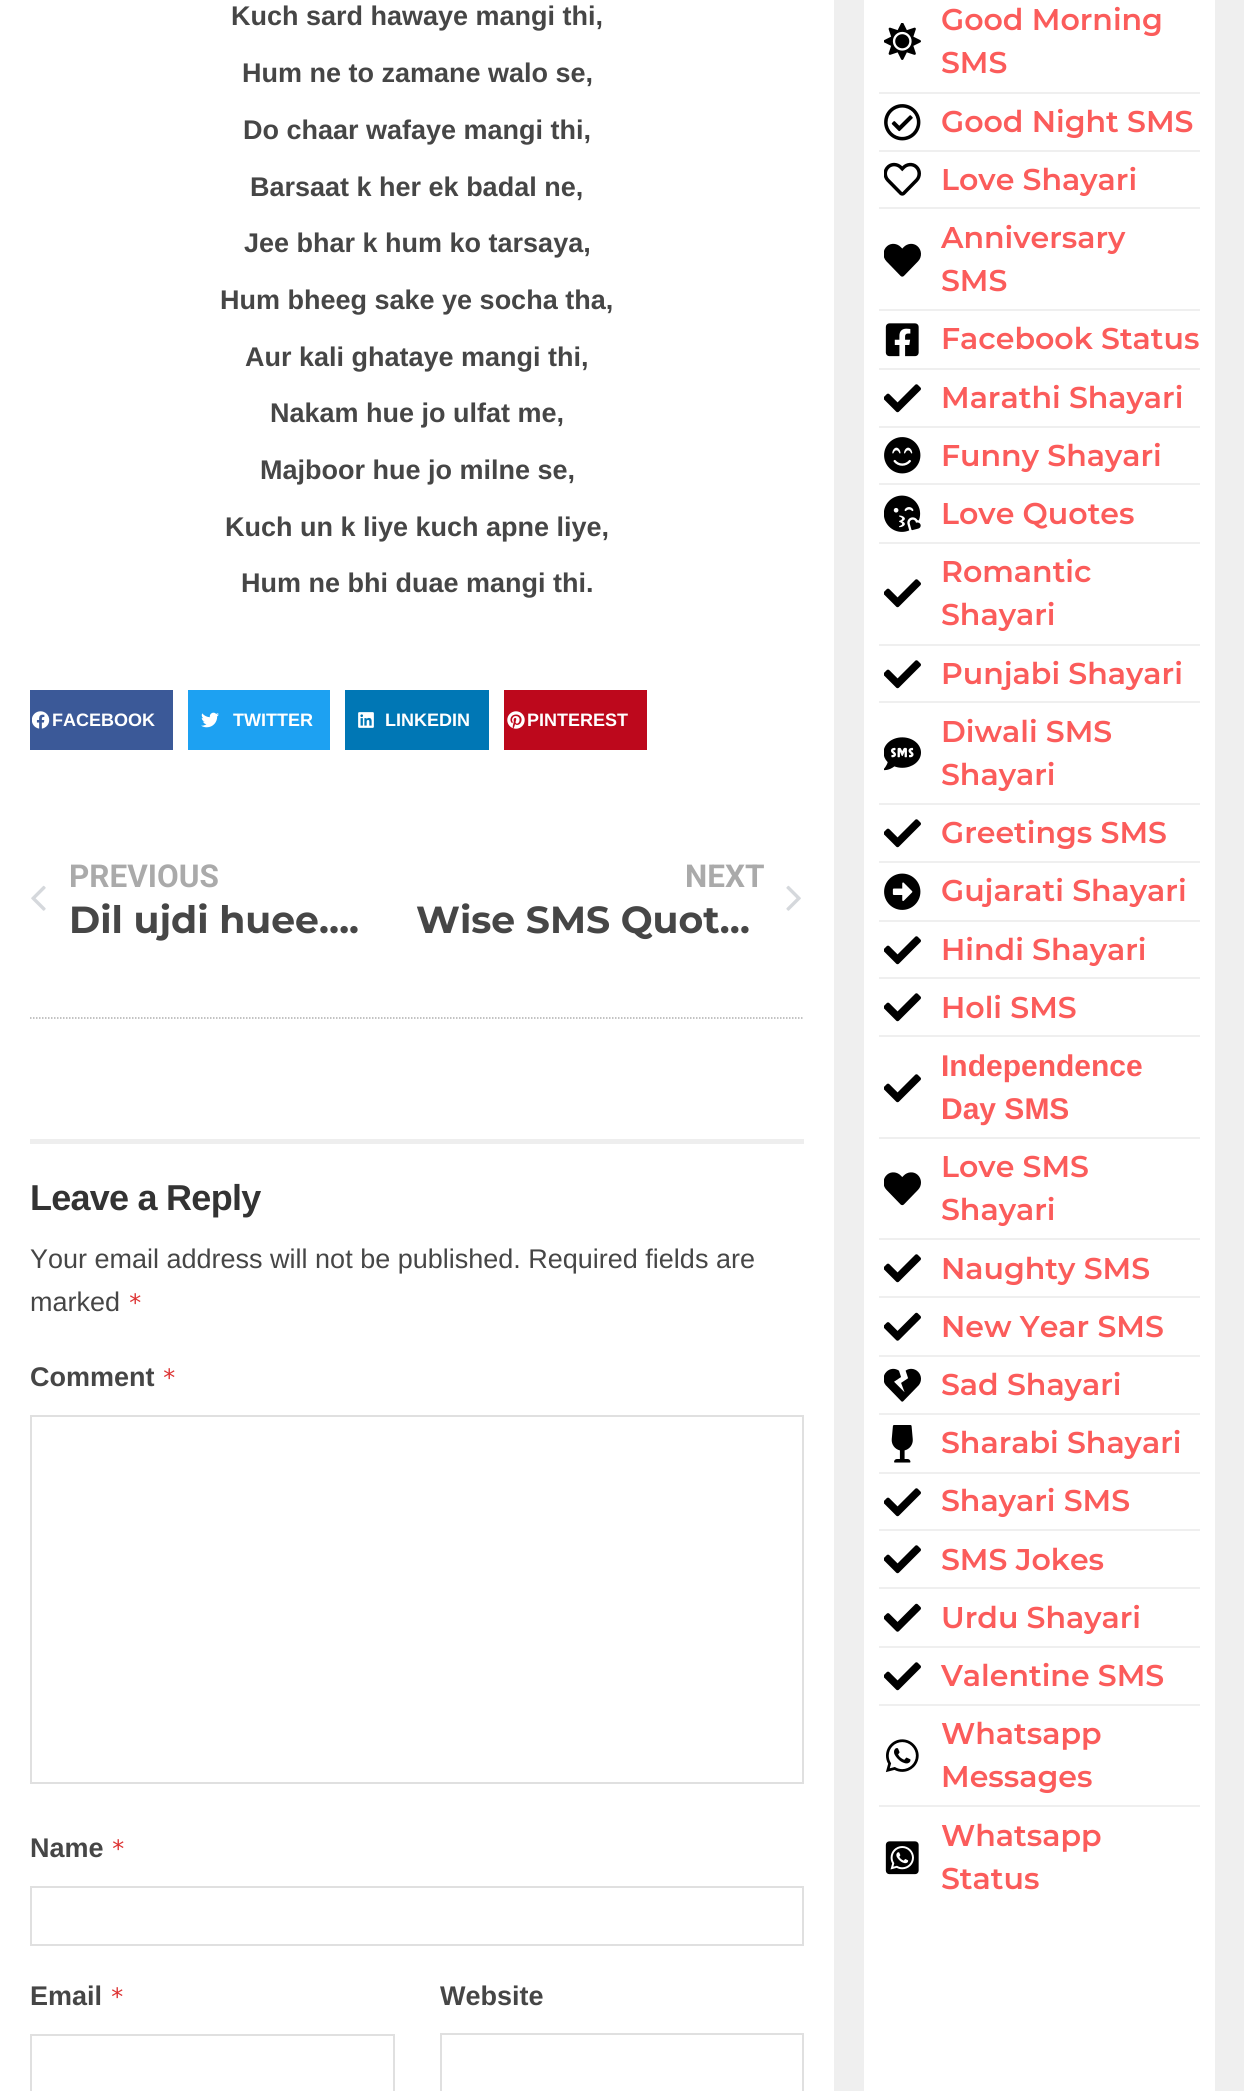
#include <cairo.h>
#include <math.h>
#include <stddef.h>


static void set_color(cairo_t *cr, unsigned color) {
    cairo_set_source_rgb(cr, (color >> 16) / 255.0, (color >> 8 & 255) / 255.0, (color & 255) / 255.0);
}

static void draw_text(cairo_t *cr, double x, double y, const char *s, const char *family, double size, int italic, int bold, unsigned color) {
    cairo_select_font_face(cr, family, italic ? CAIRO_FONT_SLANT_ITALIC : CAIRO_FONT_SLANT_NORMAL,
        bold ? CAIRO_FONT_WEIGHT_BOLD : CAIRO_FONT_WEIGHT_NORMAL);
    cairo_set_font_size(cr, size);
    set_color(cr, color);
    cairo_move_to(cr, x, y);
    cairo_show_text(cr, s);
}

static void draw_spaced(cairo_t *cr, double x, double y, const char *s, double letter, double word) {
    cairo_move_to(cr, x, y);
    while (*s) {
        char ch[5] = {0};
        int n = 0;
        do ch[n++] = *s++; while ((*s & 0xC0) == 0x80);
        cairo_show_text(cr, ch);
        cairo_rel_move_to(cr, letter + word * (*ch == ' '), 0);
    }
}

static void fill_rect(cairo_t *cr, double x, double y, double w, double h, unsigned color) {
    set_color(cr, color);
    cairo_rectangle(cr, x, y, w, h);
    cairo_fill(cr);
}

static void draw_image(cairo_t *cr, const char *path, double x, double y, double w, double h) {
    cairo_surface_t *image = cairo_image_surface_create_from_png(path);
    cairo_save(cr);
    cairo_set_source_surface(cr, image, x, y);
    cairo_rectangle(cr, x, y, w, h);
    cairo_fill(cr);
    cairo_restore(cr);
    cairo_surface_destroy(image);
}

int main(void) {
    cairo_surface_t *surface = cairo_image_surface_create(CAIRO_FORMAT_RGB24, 1244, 2091);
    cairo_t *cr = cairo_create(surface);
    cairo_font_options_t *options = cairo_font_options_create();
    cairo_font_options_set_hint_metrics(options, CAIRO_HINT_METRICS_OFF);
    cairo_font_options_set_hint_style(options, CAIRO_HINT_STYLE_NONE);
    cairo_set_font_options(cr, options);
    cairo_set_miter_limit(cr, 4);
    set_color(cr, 0xEFEFEF);
    cairo_paint(cr);
    fill_rect(cr, 0, 0, 834, 2091, 0xFFFFFF);
    draw_text(cr, 231, 25, "Kuch sard hawaye mangi thi,", "Liberation Sans", 27, 0, 1, 0x464646);
    draw_text(cr, 242, 82, "Hum ne to zamane walo se,", "Liberation Sans", 27, 0, 1, 0x464646);
    draw_text(cr, 243, 139, "Do chaar wafaye mangi thi,", "Liberation Sans", 27, 0, 1, 0x464646);
    draw_text(cr, 250, 196, "Barsaat k her ek badal ne,", "Liberation Sans", 27, 0, 1, 0x464646);
    draw_text(cr, 244, 252, "Jee bhar k hum ko tarsaya,", "Liberation Sans", 27, 0, 1, 0x464646);
    draw_text(cr, 220, 309, "Hum bheeg sake ye socha tha,", "Liberation Sans", 27, 0, 1, 0x464646);
    draw_text(cr, 245, 366, "Aur kali ghataye mangi thi,", "Liberation Sans", 27, 0, 1, 0x464646);
    draw_text(cr, 270, 422, "Nakam hue jo ulfat me,", "Liberation Sans", 27, 0, 1, 0x464646);
    draw_text(cr, 260, 479, "Majboor hue jo milne se,", "Liberation Sans", 27, 0, 1, 0x464646);
    draw_text(cr, 225, 536, "Kuch un k liye kuch apne liye,", "Liberation Sans", 27, 0, 1, 0x464646);
    draw_text(cr, 241, 592, "Hum ne bhi duae mangi thi.", "Liberation Sans", 27, 0, 1, 0x464646);
    fill_rect(cr, 30, 690, 143, 60, 0x3B5998);
    draw_image(cr, "assets/img1.png", 32, 711, 18, 18);
    draw_text(cr, 52, 726, "FACEBOOK", "Liberation Sans", 18, 0, 1, 0xFFFFFF);
    fill_rect(cr, 188, 690, 142, 60, 0x1DA1F2);
    draw_image(cr, "assets/img2.png", 201, 712, 18, 16);
    draw_text(cr, 233, 726, "TWITTER", "Liberation Sans", 18, 0, 1, 0xFFFFFF);
    fill_rect(cr, 345, 690, 144, 60, 0x0077B5);
    draw_image(cr, "assets/img3.png", 358, 712, 16, 16);
    draw_text(cr, 385, 726, "LINKEDIN", "Liberation Sans", 18, 0, 1, 0xFFFFFF);
    fill_rect(cr, 504, 690, 143, 60, 0xBD081C);
    draw_image(cr, "assets/img4.png", 507, 711, 18, 18);
    draw_text(cr, 527, 726, "PINTEREST", "Liberation Sans", 18, 0, 1, 0xFFFFFF);
    draw_image(cr, "assets/img5.png", 31, 885, 15, 26);
    draw_text(cr, 69, 887, "PREVIOUS", "Roboto", 31.5, 0, 1, 0xAAAAAA);
    draw_text(cr, 69, 933, "Dil ujdi huee….", "Montserrat", 37.75, 0, 1, 0x464646);
    draw_text(cr, 685, 887, "NEXT", "Roboto", 31.5, 0, 1, 0xAAAAAA);
    draw_text(cr, 416, 933, "Wise SMS Quot…", "Montserrat", 37.75, 0, 1, 0x464646);
    draw_image(cr, "assets/img6.png", 786, 885, 15, 26);
    cairo_new_path(cr);
    cairo_move_to(cr, 30, 1018);
    cairo_line_to(cr, 804, 1018);
    set_color(cr, 0xAFAFAF);
    cairo_set_line_width(cr, 1.5);
    cairo_set_dash(cr, (double[]){1.5, 1.5}, 2, 0);
    cairo_stroke(cr);
    fill_rect(cr, 30, 1139, 774, 5, 0xEEEEEE);
    cairo_select_font_face(cr, "Liberation Sans", CAIRO_FONT_SLANT_NORMAL, CAIRO_FONT_WEIGHT_BOLD);
    cairo_set_font_size(cr, 36);
    set_color(cr, 0x333333);
    draw_spaced(cr, 30, 1210, "Leave a Reply", -0.75, 0);
    draw_text(cr, 30, 1268, "Your email address will not be published. Required fields are", "Liberation Sans", 27, 0, 0, 0x464646);
    draw_text(cr, 30, 1311, "marked", "Liberation Sans", 27, 0, 0, 0x464646);
    draw_text(cr, 128, 1311, "*", "DejaVu Sans Mono", 24, 0, 0, 0xDD3333);
    draw_text(cr, 30, 1386, "Comment", "Liberation Sans", 27, 0, 1, 0x464646);
    draw_text(cr, 162, 1386, "*", "DejaVu Sans Mono", 24, 0, 0, 0xDD3333);
    cairo_rectangle(cr, 31, 1416, 772, 367);
    set_color(cr, 0xE0E0E0);
    cairo_set_line_width(cr, 2);
    cairo_set_dash(cr, NULL, 0, 0);
    cairo_stroke(cr);
    draw_text(cr, 30, 1857, "Name", "Liberation Sans", 27, 0, 1, 0x464646);
    draw_text(cr, 111, 1857, "*", "DejaVu Sans Mono", 24, 0, 0, 0xDD3333);
    cairo_rectangle(cr, 31, 1887, 772, 58);
    set_color(cr, 0xE0E0E0);
    cairo_stroke(cr);
    draw_text(cr, 30, 2005, "Email", "Liberation Sans", 27, 0, 1, 0x464646);
    draw_text(cr, 110, 2005, "*", "DejaVu Sans Mono", 24, 0, 0, 0xDD3333);
    cairo_rectangle(cr, 31, 2035, 363, 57);
    set_color(cr, 0xE0E0E0);
    cairo_stroke(cr);
    draw_text(cr, 440, 2005, "Website", "Liberation Sans", 27, 0, 1, 0x464646);
    cairo_rectangle(cr, 441, 2034, 362, 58);
    set_color(cr, 0xE0E0E0);
    cairo_stroke(cr);
    fill_rect(cr, 864, 0, 351, 2091, 0xFFFFFF);
    draw_image(cr, "assets/img7.png", 884, 23, 37, 37);
    draw_text(cr, 941, 30, "Good Morning", "Montserrat SemiBold", 30, 0, 0, 0xFB5C5B);
    draw_text(cr, 941, 73, "SMS", "Montserrat SemiBold", 30, 0, 0, 0xFB5C5B);
    fill_rect(cr, 879, 92, 321, 2, 0xEFEFEF);
    draw_image(cr, "assets/img8.png", 884, 104, 37, 37);
    draw_text(cr, 941, 132, "Good Night SMS", "Montserrat SemiBold", 30, 0, 0, 0xFB5C5B);
    fill_rect(cr, 879, 150, 321, 2, 0xEFEFEF);
    draw_image(cr, "assets/img9.png", 884, 162, 37, 34);
    draw_text(cr, 941, 190, "Love Shayari", "Montserrat SemiBold", 30, 0, 0, 0xFB5C5B);
    fill_rect(cr, 879, 207, 321, 2, 0xEFEFEF);
    draw_image(cr, "assets/img10.png", 884, 243, 37, 34);
    draw_text(cr, 941, 248, "Anniversary", "Montserrat SemiBold", 30, 0, 0, 0xFB5C5B);
    draw_text(cr, 941, 291, "SMS", "Montserrat SemiBold", 30, 0, 0, 0xFB5C5B);
    fill_rect(cr, 879, 309, 321, 2, 0xEFEFEF);
    draw_image(cr, "assets/img11.png", 885, 323, 34, 34);
    draw_text(cr, 941, 349, "Facebook Status", "Montserrat SemiBold", 30, 0, 0, 0xFB5C5B);
    fill_rect(cr, 879, 368, 321, 2, 0xEFEFEF);
    draw_image(cr, "assets/img12.png", 884, 384, 37, 29);
    draw_text(cr, 941, 408, "Marathi Shayari", "Montserrat SemiBold", 30, 0, 0, 0xFB5C5B);
    fill_rect(cr, 879, 426, 321, 2, 0xEFEFEF);
    draw_image(cr, "assets/img13.png", 884, 437, 37, 37);
    draw_text(cr, 941, 466, "Funny Shayari", "Montserrat SemiBold", 30, 0, 0, 0xFB5C5B);
    fill_rect(cr, 879, 483, 321, 2, 0xEFEFEF);
    draw_image(cr, "assets/img14.png", 884, 495, 37, 37);
    draw_text(cr, 941, 524, "Love Quotes", "Montserrat SemiBold", 30, 0, 0, 0xFB5C5B);
    fill_rect(cr, 879, 542, 321, 2, 0xEFEFEF);
    draw_image(cr, "assets/img12.png", 884, 579, 37, 29);
    draw_text(cr, 941, 582, "Romantic", "Montserrat SemiBold", 30, 0, 0, 0xFB5C5B);
    draw_text(cr, 941, 625, "Shayari", "Montserrat SemiBold", 30, 0, 0, 0xFB5C5B);
    fill_rect(cr, 879, 644, 321, 2, 0xEFEFEF);
    draw_image(cr, "assets/img12.png", 884, 660, 37, 29);
    draw_text(cr, 941, 684, "Punjabi Shayari", "Montserrat SemiBold", 30, 0, 0, 0xFB5C5B);
    fill_rect(cr, 879, 701, 321, 2, 0xEFEFEF);
    draw_image(cr, "assets/img15.png", 884, 737, 37, 34);
    draw_text(cr, 941, 742, "Diwali SMS", "Montserrat SemiBold", 30, 0, 0, 0xFB5C5B);
    draw_text(cr, 941, 785, "Shayari", "Montserrat SemiBold", 30, 0, 0, 0xFB5C5B);
    fill_rect(cr, 879, 803, 321, 2, 0xEFEFEF);
    draw_image(cr, "assets/img12.png", 884, 819, 37, 29);
    draw_text(cr, 941, 843, "Greetings SMS", "Montserrat SemiBold", 30, 0, 0, 0xFB5C5B);
    fill_rect(cr, 879, 861, 321, 2, 0xEFEFEF);
    draw_image(cr, "assets/img16.png", 884, 873, 37, 37);
    draw_text(cr, 941, 901, "Gujarati Shayari", "Montserrat SemiBold", 30, 0, 0, 0xFB5C5B);
    fill_rect(cr, 879, 920, 321, 2, 0xEFEFEF);
    draw_image(cr, "assets/img12.png", 884, 936, 37, 29);
    draw_text(cr, 941, 960, "Hindi Shayari", "Montserrat SemiBold", 30, 0, 0, 0xFB5C5B);
    fill_rect(cr, 879, 977, 321, 2, 0xEFEFEF);
    draw_image(cr, "assets/img12.png", 884, 993, 37, 29);
    draw_text(cr, 941, 1018, "Holi SMS", "Montserrat SemiBold", 30, 0, 0, 0xFB5C5B);
    fill_rect(cr, 879, 1035, 321, 2, 0xEFEFEF);
    draw_image(cr, "assets/img12.png", 884, 1074, 37, 29);
    draw_text(cr, 941, 1076, "Independence", "Liberation Sans", 30, 0, 1, 0xFB5C5B);
    draw_text(cr, 941, 1119, "Day SMS", "Liberation Sans", 30, 0, 1, 0xFB5C5B);
    fill_rect(cr, 879, 1137, 321, 2, 0xEFEFEF);
    draw_image(cr, "assets/img17.png", 884, 1172, 37, 34);
    draw_text(cr, 941, 1177, "Love SMS", "Montserrat SemiBold", 30, 0, 0, 0xFB5C5B);
    draw_text(cr, 941, 1220, "Shayari", "Montserrat SemiBold", 30, 0, 0, 0xFB5C5B);
    fill_rect(cr, 879, 1238, 321, 2, 0xEFEFEF);
    draw_image(cr, "assets/img12.png", 884, 1254, 37, 29);
    draw_text(cr, 941, 1279, "Naughty SMS", "Montserrat SemiBold", 30, 0, 0, 0xFB5C5B);
    fill_rect(cr, 879, 1296, 321, 2, 0xEFEFEF);
    draw_image(cr, "assets/img18.png", 884, 1312, 37, 29);
    draw_text(cr, 941, 1337, "New Year SMS", "Montserrat SemiBold", 30, 0, 0, 0xFB5C5B);
    fill_rect(cr, 879, 1355, 321, 2, 0xEFEFEF);
    draw_image(cr, "assets/img19.png", 884, 1368, 37, 34);
    draw_text(cr, 941, 1395, "Sad Shayari", "Montserrat SemiBold", 30, 0, 0, 0xFB5C5B);
    fill_rect(cr, 879, 1413, 321, 2, 0xEFEFEF);
    draw_image(cr, "assets/img20.png", 891, 1425, 22, 38);
    draw_text(cr, 941, 1453, "Sharabi Shayari", "Montserrat SemiBold", 30, 0, 0, 0xFB5C5B);
    fill_rect(cr, 879, 1472, 321, 2, 0xEFEFEF);
    draw_image(cr, "assets/img12.png", 884, 1488, 37, 29);
    draw_text(cr, 941, 1511, "Shayari SMS", "Montserrat SemiBold", 30, 0, 0, 0xFB5C5B);
    fill_rect(cr, 879, 1529, 321, 2, 0xEFEFEF);
    draw_image(cr, "assets/img12.png", 884, 1545, 37, 29);
    draw_text(cr, 941, 1570, "SMS Jokes", "Montserrat SemiBold", 30, 0, 0, 0xFB5C5B);
    fill_rect(cr, 879, 1587, 321, 2, 0xEFEFEF);
    draw_image(cr, "assets/img18.png", 884, 1603, 37, 29);
    draw_text(cr, 941, 1628, "Urdu Shayari", "Montserrat SemiBold", 30, 0, 0, 0xFB5C5B);
    fill_rect(cr, 879, 1646, 321, 2, 0xEFEFEF);
    draw_image(cr, "assets/img12.png", 884, 1662, 37, 29);
    draw_text(cr, 941, 1686, "Valentine SMS", "Montserrat SemiBold", 30, 0, 0, 0xFB5C5B);
    fill_rect(cr, 879, 1704, 321, 2, 0xEFEFEF);
    draw_image(cr, "assets/img21.png", 885, 1739, 34, 34);
    draw_text(cr, 941, 1744, "Whatsapp", "Montserrat SemiBold", 30, 0, 0, 0xFB5C5B);
    draw_text(cr, 941, 1787, "Messages", "Montserrat SemiBold", 30, 0, 0, 0xFB5C5B);
    fill_rect(cr, 879, 1805, 321, 2, 0xEFEFEF);
    draw_image(cr, "assets/img22.png", 885, 1841, 34, 34);
    draw_text(cr, 941, 1846, "Whatsapp", "Montserrat SemiBold", 30, 0, 0, 0xFB5C5B);
    draw_text(cr, 941, 1889, "Status", "Montserrat SemiBold", 30, 0, 0, 0xFB5C5B);
    cairo_surface_write_to_png(surface, "output.png");
    cairo_font_options_destroy(options);
    cairo_destroy(cr);
    cairo_surface_destroy(surface);
    return 0;
}
